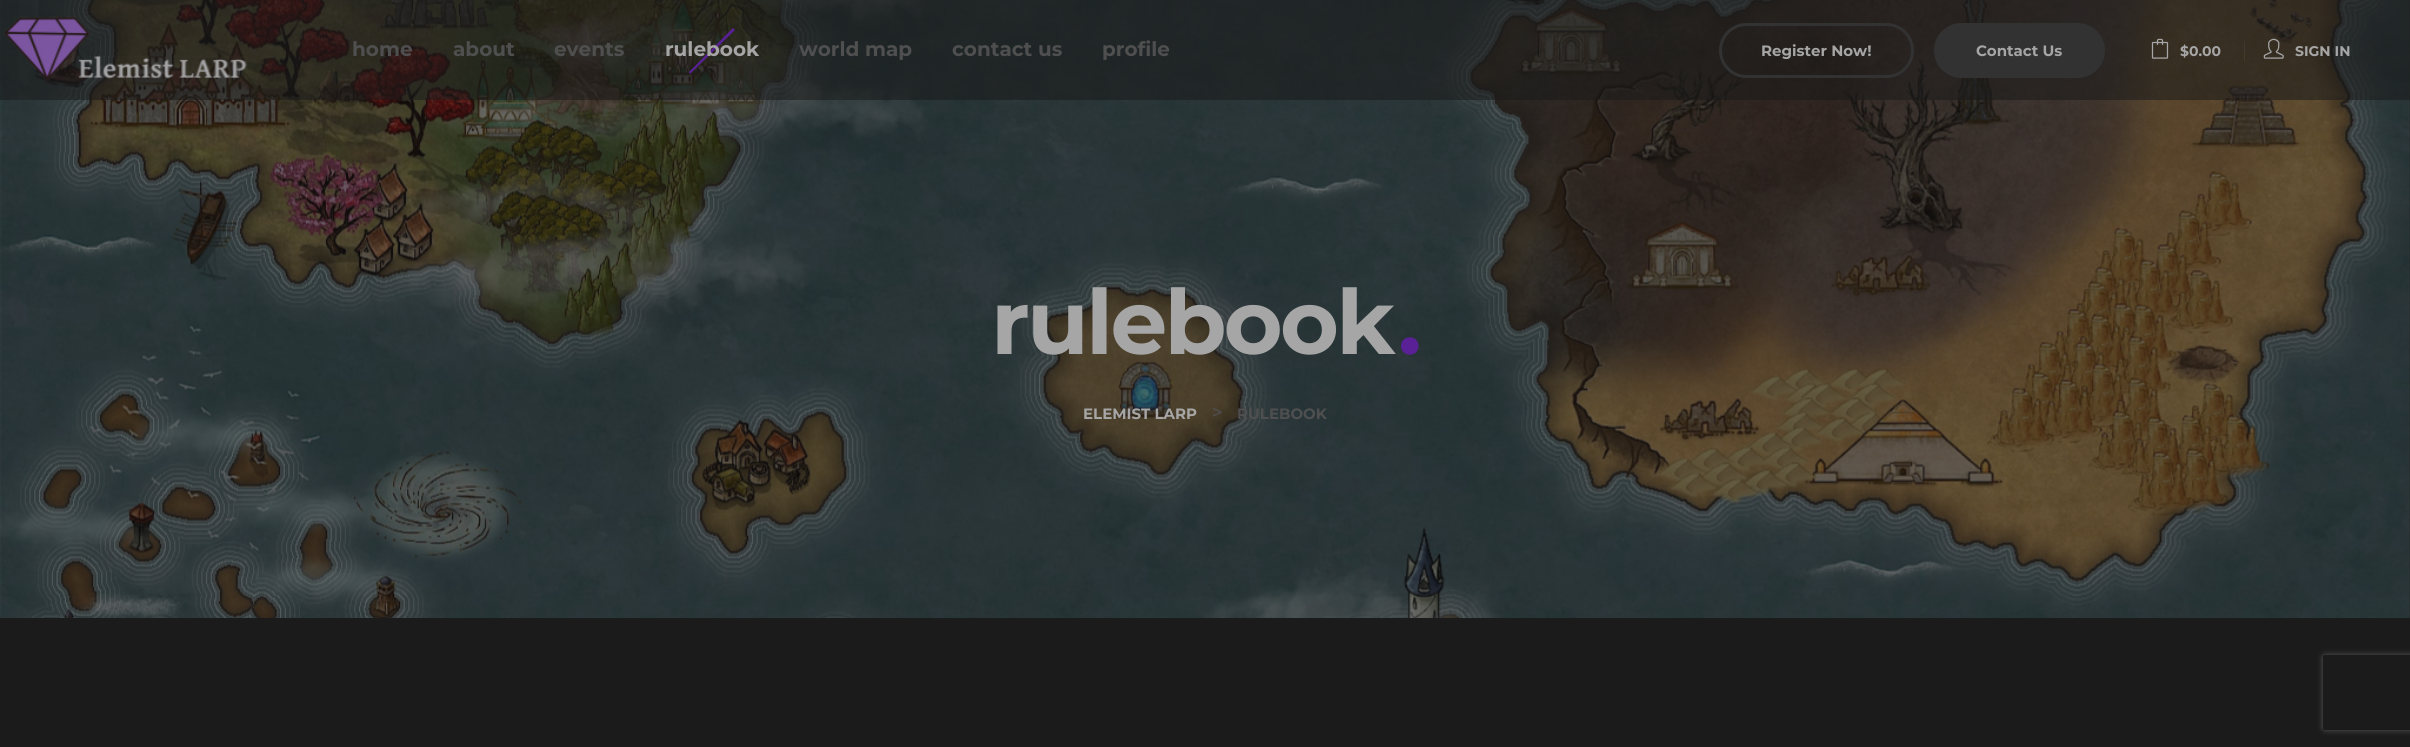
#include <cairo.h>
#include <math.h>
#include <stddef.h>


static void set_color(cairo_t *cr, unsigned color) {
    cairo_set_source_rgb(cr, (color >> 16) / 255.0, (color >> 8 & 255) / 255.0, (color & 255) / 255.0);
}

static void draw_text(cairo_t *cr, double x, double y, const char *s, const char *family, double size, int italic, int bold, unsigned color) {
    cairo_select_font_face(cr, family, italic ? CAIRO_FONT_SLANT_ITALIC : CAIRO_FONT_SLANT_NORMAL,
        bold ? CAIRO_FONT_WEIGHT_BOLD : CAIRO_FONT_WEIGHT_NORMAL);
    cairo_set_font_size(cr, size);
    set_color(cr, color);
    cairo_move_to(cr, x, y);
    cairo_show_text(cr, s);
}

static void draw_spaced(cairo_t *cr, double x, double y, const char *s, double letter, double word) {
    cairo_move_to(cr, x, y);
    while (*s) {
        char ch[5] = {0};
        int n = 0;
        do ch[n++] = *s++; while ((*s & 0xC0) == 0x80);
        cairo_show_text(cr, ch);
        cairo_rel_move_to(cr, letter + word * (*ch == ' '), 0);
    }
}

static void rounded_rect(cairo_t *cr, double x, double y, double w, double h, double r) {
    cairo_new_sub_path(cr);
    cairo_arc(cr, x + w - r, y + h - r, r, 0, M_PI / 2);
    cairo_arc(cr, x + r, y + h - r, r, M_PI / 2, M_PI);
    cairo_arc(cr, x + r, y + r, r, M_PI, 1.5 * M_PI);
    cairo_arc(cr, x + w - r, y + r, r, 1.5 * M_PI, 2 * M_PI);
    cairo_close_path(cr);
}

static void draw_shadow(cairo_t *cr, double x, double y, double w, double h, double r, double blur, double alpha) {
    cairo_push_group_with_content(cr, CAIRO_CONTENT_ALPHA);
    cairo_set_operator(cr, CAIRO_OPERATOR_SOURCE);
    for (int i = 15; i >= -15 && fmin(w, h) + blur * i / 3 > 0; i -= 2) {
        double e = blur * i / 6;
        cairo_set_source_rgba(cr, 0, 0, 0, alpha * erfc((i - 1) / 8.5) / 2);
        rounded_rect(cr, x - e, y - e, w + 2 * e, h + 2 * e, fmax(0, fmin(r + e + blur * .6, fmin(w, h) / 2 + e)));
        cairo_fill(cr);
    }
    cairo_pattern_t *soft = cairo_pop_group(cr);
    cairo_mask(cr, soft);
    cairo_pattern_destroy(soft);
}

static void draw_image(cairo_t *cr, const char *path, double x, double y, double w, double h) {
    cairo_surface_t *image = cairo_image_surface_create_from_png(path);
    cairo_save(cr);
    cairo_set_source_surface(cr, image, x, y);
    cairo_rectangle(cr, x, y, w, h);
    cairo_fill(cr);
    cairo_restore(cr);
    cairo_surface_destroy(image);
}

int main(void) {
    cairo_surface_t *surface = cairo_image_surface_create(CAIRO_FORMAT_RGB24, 2410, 747);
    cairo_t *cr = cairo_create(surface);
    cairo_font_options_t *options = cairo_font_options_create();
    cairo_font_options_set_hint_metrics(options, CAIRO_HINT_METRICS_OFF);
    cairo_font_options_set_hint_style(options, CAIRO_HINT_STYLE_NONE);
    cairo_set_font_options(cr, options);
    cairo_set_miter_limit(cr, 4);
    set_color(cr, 0x1B1B1B);
    cairo_paint(cr);
    draw_image(cr, "assets/img4.png", 0, 0, 2410, 618);
    cairo_set_source_rgba(cr, 0.106, 0.106, 0.106, 0.55);
    cairo_rectangle(cr, 0, 0, 2410, 100);
    cairo_fill(cr);
    draw_image(cr, "assets/img1.png", 3, 0, 245, 100);
    draw_text(cr, 352, 56, "home", "Montserrat", 20, 0, 1, 0x4F4F4F);
    draw_text(cr, 453, 56, "about", "Montserrat", 20, 0, 1, 0x4F4F4F);
    draw_text(cr, 554, 56, "events", "Montserrat", 20, 0, 1, 0x4F4F4F);
    set_color(cr, 0x5A2095);
    cairo_new_path(cr);
    cairo_move_to(cr, 689, 72);
    cairo_line_to(cr, 733, 28);
    cairo_line_to(cr, 735, 30);
    cairo_line_to(cr, 690, 74);
    cairo_close_path(cr);
    cairo_fill(cr);
    draw_text(cr, 665, 56, "rulebook", "Montserrat", 20, 0, 1, 0xA6A6A6);
    draw_text(cr, 799, 56, "world map", "Montserrat", 20, 0, 1, 0x4F4F4F);
    draw_text(cr, 952, 56, "contact us", "Montserrat", 20, 0, 1, 0x4F4F4F);
    draw_text(cr, 1102, 56, "profile", "Montserrat", 20, 0, 1, 0x4F4F4F);
    rounded_rect(cr, 1720.5, 24.5, 192, 52, 26);
    set_color(cr, 0x323232);
    cairo_set_line_width(cr, 3);
    cairo_stroke(cr);
    draw_text(cr, 1761, 56, "Register Now!", "Montserrat", 15, 0, 1, 0xA6A6A6);
    set_color(cr, 0x323232);
    rounded_rect(cr, 1935.5, 24.5, 168, 52, 26);
    cairo_fill_preserve(cr);
    cairo_stroke(cr);
    draw_text(cr, 1976, 56, "Contact Us", "Montserrat", 15, 0, 1, 0xA6A6A6);
    draw_image(cr, "assets/img2.png", 2151, 38, 18, 21);
    draw_text(cr, 2180, 56, "$0.00", "Montserrat", 14, 0, 1, 0xA6A6A6);
    cairo_set_source_rgba(cr, 0.651, 0.651, 0.651, 0.1);
    cairo_rectangle(cr, 2244, 41, 1, 20);
    cairo_fill(cr);
    draw_image(cr, "assets/img3.png", 2263, 38, 21, 21);
    draw_text(cr, 2295, 56, "SIGN IN", "Montserrat", 14, 0, 1, 0xA6A6A6);
    cairo_set_font_size(cr, 90);
    draw_spaced(cr, 991, 354, "rulebook", -2.75, 0);
    set_color(cr, 0x5A2095);
    draw_spaced(cr, 1398, 354, ".", -2.75, 0);
    draw_text(cr, 1083, 419, "ELEMIST LARP", "Montserrat", 15, 0, 1, 0xA6A6A6);
    draw_text(cr, 1212, 419, ">", "Hind", 20, 0, 0, 0x4F4F4F);
    draw_text(cr, 1237, 419, "RULEBOOK", "Montserrat", 15, 0, 1, 0x4F4F4F);
    cairo_save(cr);
    cairo_set_fill_rule(cr, CAIRO_FILL_RULE_EVEN_ODD);
    cairo_new_path(cr);
    cairo_move_to(cr, 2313, 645);
    cairo_line_to(cr, 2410, 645);
    cairo_line_to(cr, 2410, 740);
    cairo_line_to(cr, 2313, 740);
    cairo_close_path(cr);
    cairo_move_to(cr, 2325.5, 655);
    cairo_line_to(cr, 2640.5, 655);
    cairo_curve_to(cr, 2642, 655, 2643, 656, 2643, 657.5);
    cairo_line_to(cr, 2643, 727.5);
    cairo_curve_to(cr, 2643, 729, 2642, 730, 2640.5, 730);
    cairo_line_to(cr, 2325.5, 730);
    cairo_curve_to(cr, 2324, 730, 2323, 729, 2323, 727.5);
    cairo_line_to(cr, 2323, 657.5);
    cairo_curve_to(cr, 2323, 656, 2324, 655, 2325.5, 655);
    cairo_close_path(cr);
    cairo_clip(cr);
    set_color(cr, 0x595959);
    draw_shadow(cr, 2323, 655, 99, 75, 2.5, 3, 1);
    cairo_restore(cr);
    cairo_surface_write_to_png(surface, "output.png");
    cairo_font_options_destroy(options);
    cairo_destroy(cr);
    cairo_surface_destroy(surface);
    return 0;
}
